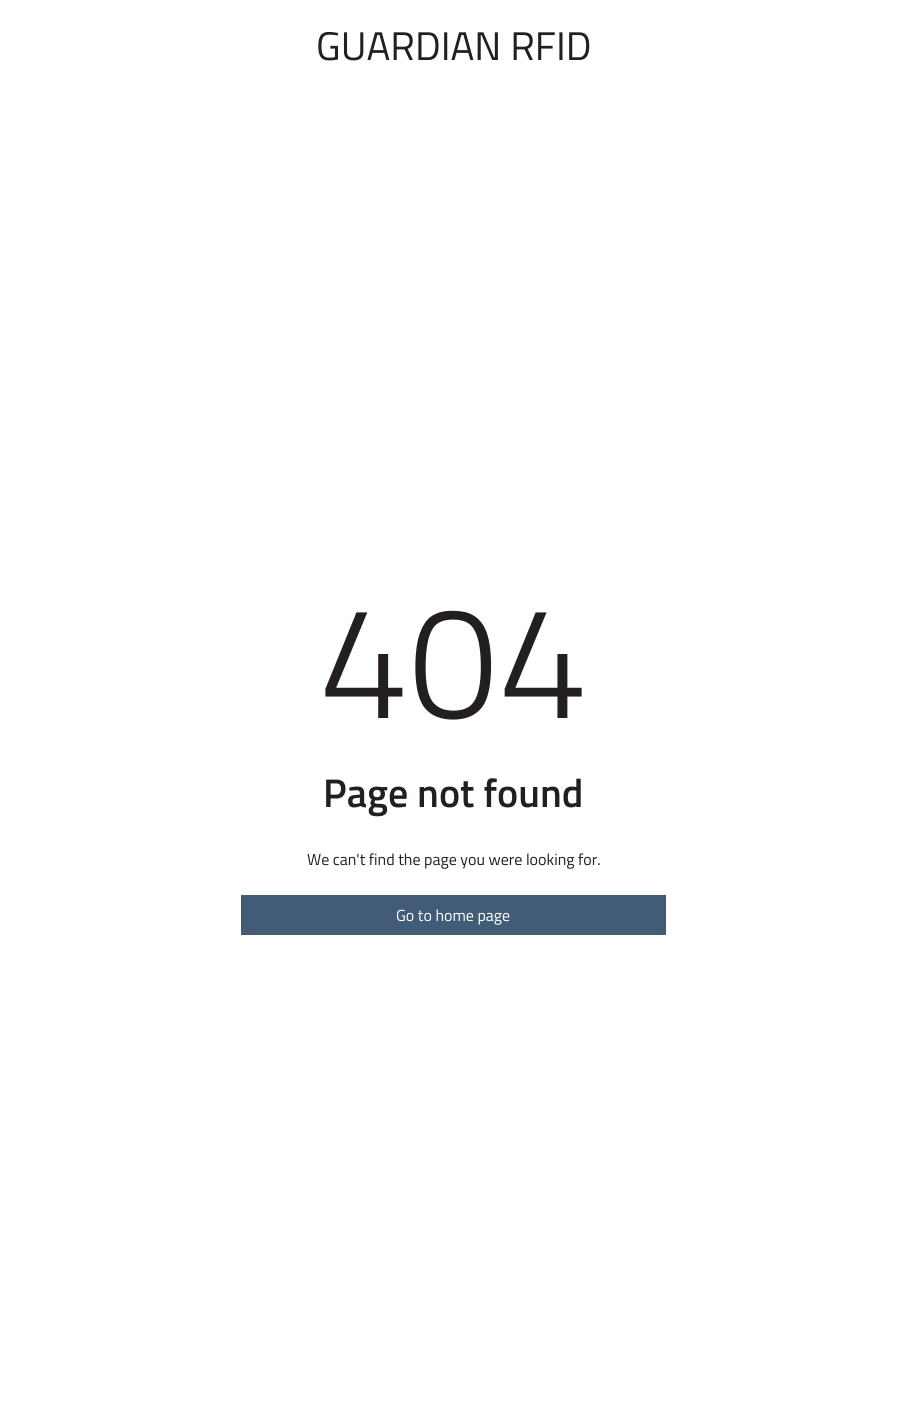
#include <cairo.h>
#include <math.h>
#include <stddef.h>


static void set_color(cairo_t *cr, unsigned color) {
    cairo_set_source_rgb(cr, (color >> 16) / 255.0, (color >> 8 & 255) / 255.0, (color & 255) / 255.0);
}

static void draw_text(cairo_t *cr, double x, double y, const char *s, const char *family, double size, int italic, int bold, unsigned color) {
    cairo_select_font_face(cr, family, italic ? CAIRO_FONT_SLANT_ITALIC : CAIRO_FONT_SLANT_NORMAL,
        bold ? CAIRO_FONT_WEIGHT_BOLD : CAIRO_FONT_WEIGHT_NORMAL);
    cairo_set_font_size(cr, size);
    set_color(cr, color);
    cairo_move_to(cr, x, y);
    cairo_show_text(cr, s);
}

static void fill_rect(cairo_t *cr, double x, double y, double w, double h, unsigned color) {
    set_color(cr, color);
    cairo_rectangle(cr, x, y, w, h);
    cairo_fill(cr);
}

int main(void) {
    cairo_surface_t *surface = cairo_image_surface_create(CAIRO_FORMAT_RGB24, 907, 1422);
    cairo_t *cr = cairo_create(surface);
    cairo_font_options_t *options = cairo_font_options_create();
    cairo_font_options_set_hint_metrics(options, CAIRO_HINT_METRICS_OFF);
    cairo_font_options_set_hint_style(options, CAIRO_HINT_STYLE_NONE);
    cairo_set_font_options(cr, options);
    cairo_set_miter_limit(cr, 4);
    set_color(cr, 0xFFFFFF);
    cairo_paint(cr);
    draw_text(cr, 316, 60, "GUARDIAN RFID", "Titillium Web", 40, 0, 0, 0x231F20);
    draw_text(cr, 319, 718, "404", "Titillium Web Light", 160, 0, 0, 0x231F20);
    draw_text(cr, 323, 807, "Page not found", "Titillium Web SemiBold", 40, 0, 0, 0x231F20);
    draw_text(cr, 307, 865, "We can't find the page you were looking for.", "Titillium Web", 16, 0, 0, 0x231F20);
    fill_rect(cr, 241, 895, 425, 40, 0x425B76);
    draw_text(cr, 396, 921, "Go to home page", "Titillium Web", 16, 0, 0, 0xFFFFFF);
    cairo_surface_write_to_png(surface, "output.png");
    cairo_font_options_destroy(options);
    cairo_destroy(cr);
    cairo_surface_destroy(surface);
    return 0;
}
